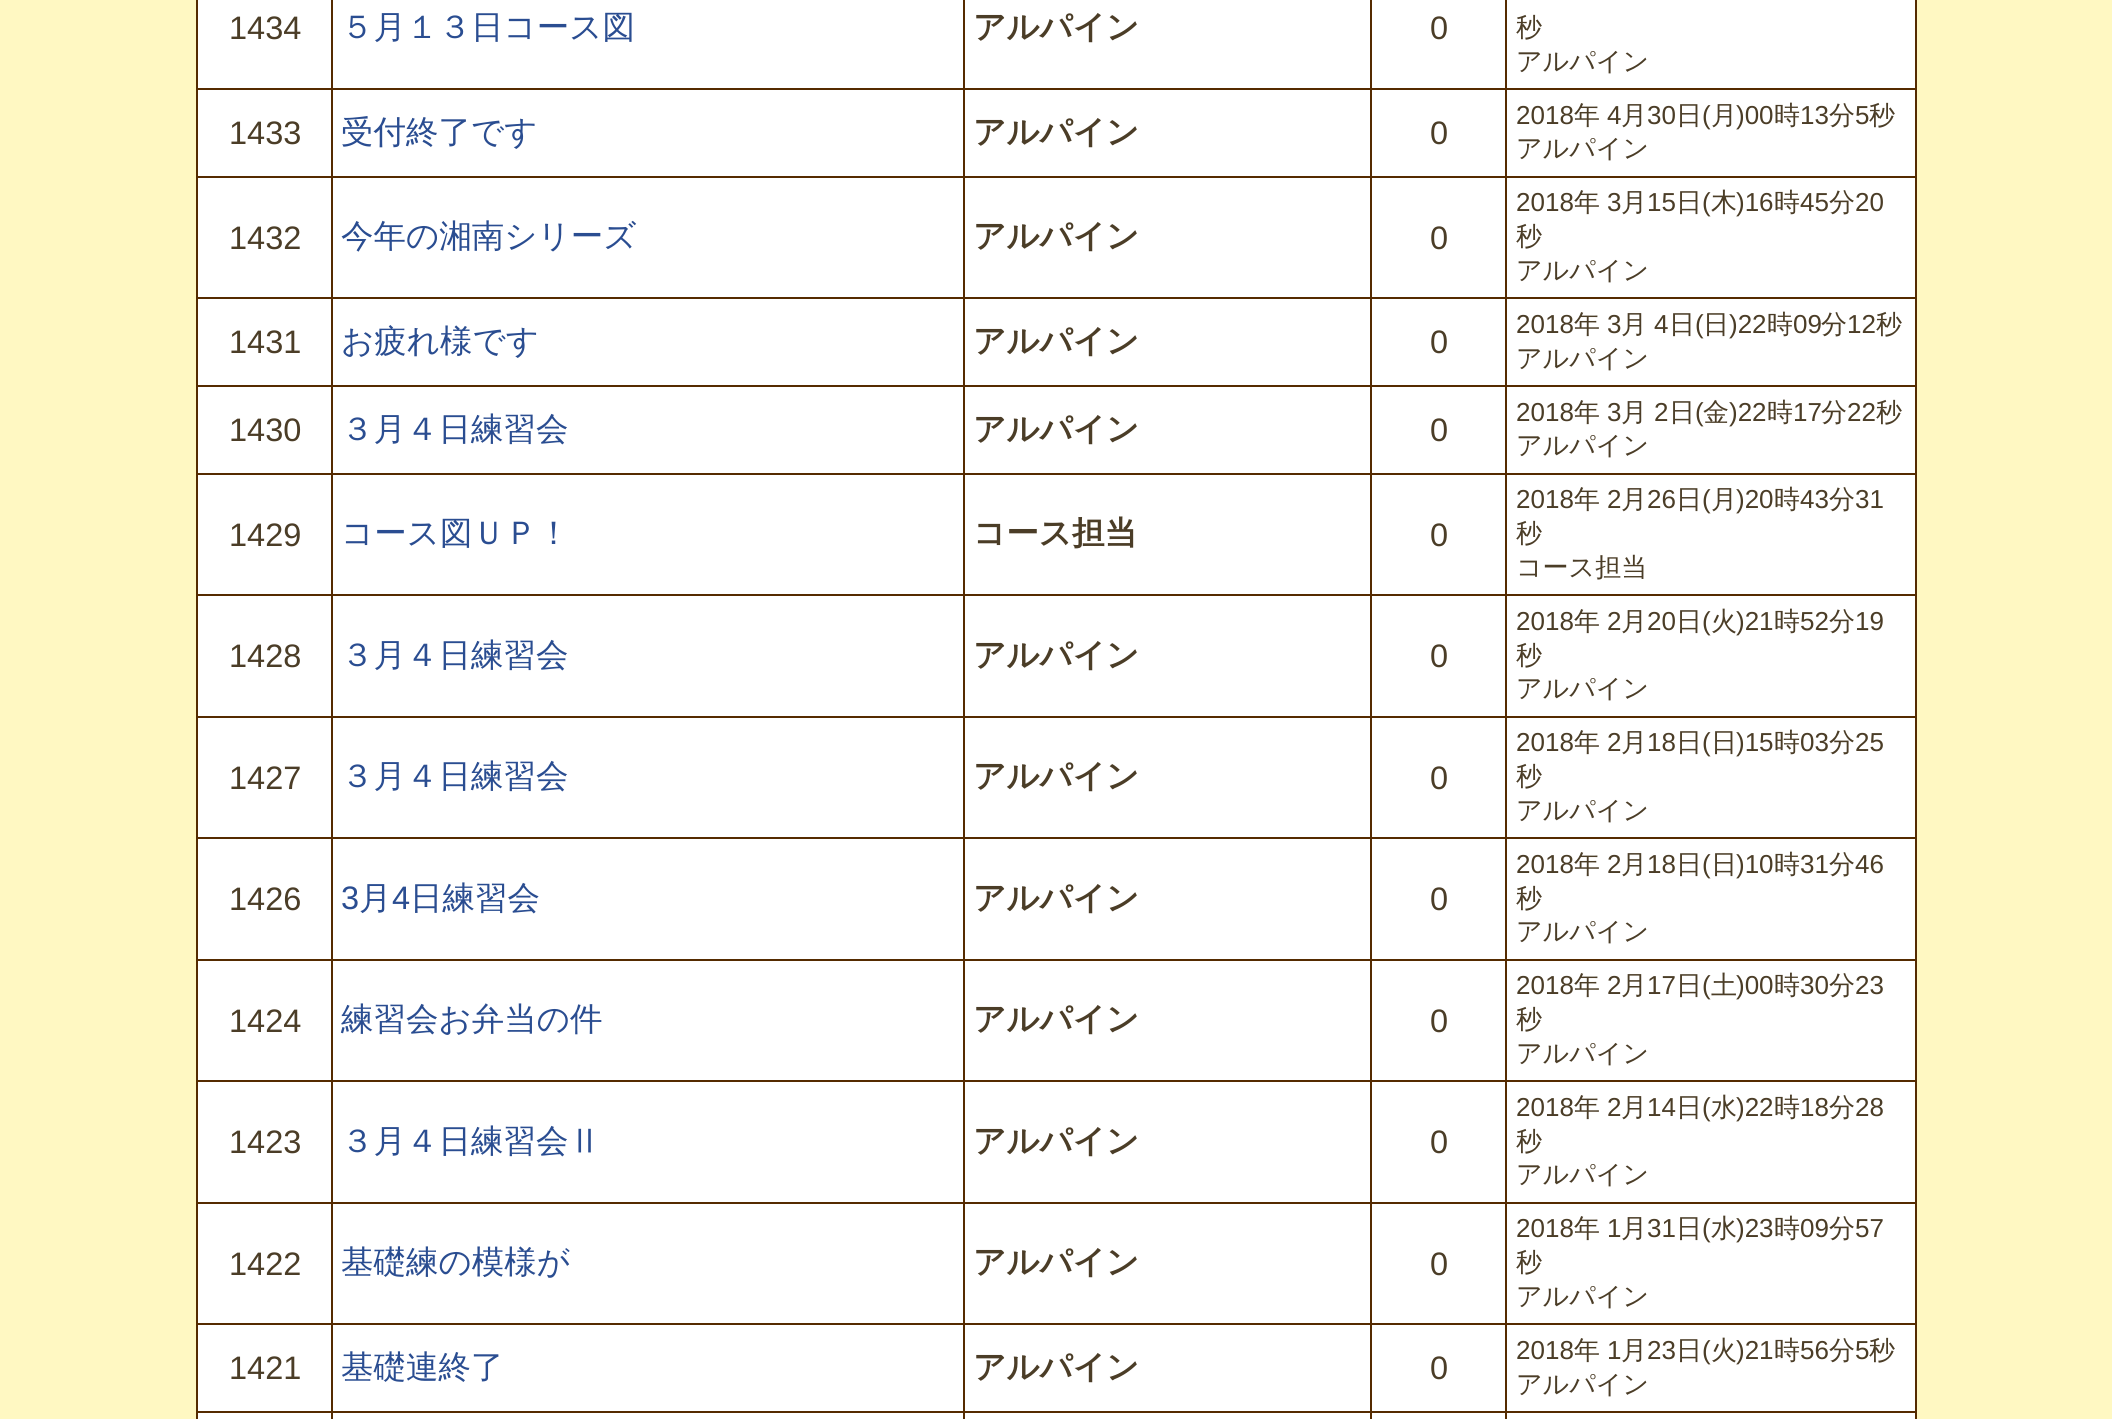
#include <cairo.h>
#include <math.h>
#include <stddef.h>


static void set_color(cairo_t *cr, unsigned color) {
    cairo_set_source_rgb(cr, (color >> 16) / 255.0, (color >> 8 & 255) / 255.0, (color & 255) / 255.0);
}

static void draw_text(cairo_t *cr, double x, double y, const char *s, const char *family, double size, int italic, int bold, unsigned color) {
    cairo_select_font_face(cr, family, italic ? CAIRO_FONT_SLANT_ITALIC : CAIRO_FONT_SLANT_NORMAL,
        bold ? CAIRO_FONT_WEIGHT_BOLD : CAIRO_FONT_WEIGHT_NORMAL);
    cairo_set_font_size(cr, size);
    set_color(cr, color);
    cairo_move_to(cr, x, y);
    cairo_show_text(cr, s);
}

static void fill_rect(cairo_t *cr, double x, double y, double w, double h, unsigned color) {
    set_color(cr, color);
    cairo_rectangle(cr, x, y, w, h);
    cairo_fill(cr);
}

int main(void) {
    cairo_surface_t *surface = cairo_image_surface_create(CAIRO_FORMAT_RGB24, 2112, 1419);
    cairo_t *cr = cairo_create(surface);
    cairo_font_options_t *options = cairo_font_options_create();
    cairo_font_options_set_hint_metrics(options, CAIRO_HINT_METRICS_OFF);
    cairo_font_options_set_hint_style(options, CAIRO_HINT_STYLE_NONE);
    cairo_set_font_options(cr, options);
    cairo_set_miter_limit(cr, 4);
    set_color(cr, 0xFFF8C2);
    cairo_paint(cr);
    fill_rect(cr, 198, 0, 133, 88, 0xFFFFFF);
    draw_text(cr, 229, 39, "1434", "Liberation Sans", 32.5, 0, 0, 0x4B3D27);
    fill_rect(cr, 333, 0, 630, 88, 0xFFFFFF);
    fill_rect(cr, 1505, 88, 412, 2, 0x552B00);
    fill_rect(cr, 1505, 176, 412, 2, 0x552B00);
    fill_rect(cr, 1505, 297, 412, 2, 0x552B00);
    fill_rect(cr, 1505, 385, 412, 2, 0x552B00);
    fill_rect(cr, 1505, 473, 412, 2, 0x552B00);
    fill_rect(cr, 1505, 594, 412, 2, 0x552B00);
    fill_rect(cr, 1505, 716, 412, 2, 0x552B00);
    fill_rect(cr, 1505, 837, 412, 2, 0x552B00);
    fill_rect(cr, 1505, 959, 412, 2, 0x552B00);
    fill_rect(cr, 1505, 1080, 412, 2, 0x552B00);
    fill_rect(cr, 1505, 1202, 412, 2, 0x552B00);
    fill_rect(cr, 1505, 1323, 412, 2, 0x552B00);
    fill_rect(cr, 1505, 1411, 412, 2, 0x552B00);
    fill_rect(cr, 198, 1413, 1717, 6, 0xFFFFFF);
    fill_rect(cr, 1505, 1411, 2, 8, 0x552B00);
    fill_rect(cr, 1370, 1411, 138, 2, 0x552B00);
    fill_rect(cr, 1505, 1323, 2, 90, 0x552B00);
    fill_rect(cr, 1370, 1323, 138, 2, 0x552B00);
    fill_rect(cr, 1505, 1202, 2, 123, 0x552B00);
    fill_rect(cr, 1370, 1202, 138, 2, 0x552B00);
    fill_rect(cr, 1505, 1080, 2, 124, 0x552B00);
    fill_rect(cr, 1370, 1080, 138, 2, 0x552B00);
    fill_rect(cr, 1505, 959, 2, 123, 0x552B00);
    fill_rect(cr, 1370, 959, 138, 2, 0x552B00);
    fill_rect(cr, 1505, 837, 2, 124, 0x552B00);
    fill_rect(cr, 1370, 837, 138, 2, 0x552B00);
    fill_rect(cr, 1505, 716, 2, 123, 0x552B00);
    fill_rect(cr, 1370, 716, 138, 2, 0x552B00);
    fill_rect(cr, 1505, 594, 2, 124, 0x552B00);
    fill_rect(cr, 1370, 594, 138, 2, 0x552B00);
    fill_rect(cr, 1505, 473, 2, 123, 0x552B00);
    fill_rect(cr, 1370, 473, 138, 2, 0x552B00);
    fill_rect(cr, 1505, 385, 2, 90, 0x552B00);
    fill_rect(cr, 1370, 385, 138, 2, 0x552B00);
    fill_rect(cr, 1505, 297, 2, 90, 0x552B00);
    fill_rect(cr, 1370, 297, 138, 2, 0x552B00);
    fill_rect(cr, 1505, 176, 2, 123, 0x552B00);
    fill_rect(cr, 1370, 176, 138, 2, 0x552B00);
    fill_rect(cr, 1505, 88, 2, 90, 0x552B00);
    fill_rect(cr, 1370, 88, 138, 2, 0x552B00);
    fill_rect(cr, 965, 90, 540, 86, 0xFFFFFF);
    fill_rect(cr, 965, 178, 540, 119, 0xFFFFFF);
    fill_rect(cr, 965, 299, 540, 86, 0xFFFFFF);
    fill_rect(cr, 965, 387, 540, 86, 0xFFFFFF);
    fill_rect(cr, 965, 475, 540, 119, 0xFFFFFF);
    fill_rect(cr, 965, 596, 540, 120, 0xFFFFFF);
    fill_rect(cr, 965, 718, 540, 119, 0xFFFFFF);
    fill_rect(cr, 965, 839, 540, 120, 0xFFFFFF);
    fill_rect(cr, 965, 961, 540, 119, 0xFFFFFF);
    fill_rect(cr, 965, 1082, 540, 120, 0xFFFFFF);
    fill_rect(cr, 965, 1204, 540, 119, 0xFFFFFF);
    fill_rect(cr, 965, 1325, 540, 86, 0xFFFFFF);
    fill_rect(cr, 1370, 1411, 2, 8, 0x552B00);
    fill_rect(cr, 963, 1411, 410, 2, 0x552B00);
    fill_rect(cr, 1370, 1323, 2, 90, 0x552B00);
    fill_rect(cr, 963, 1323, 410, 2, 0x552B00);
    fill_rect(cr, 1370, 1202, 2, 123, 0x552B00);
    fill_rect(cr, 963, 1202, 410, 2, 0x552B00);
    fill_rect(cr, 1370, 1080, 2, 124, 0x552B00);
    fill_rect(cr, 963, 1080, 410, 2, 0x552B00);
    fill_rect(cr, 1370, 959, 2, 123, 0x552B00);
    fill_rect(cr, 963, 959, 410, 2, 0x552B00);
    fill_rect(cr, 1370, 837, 2, 124, 0x552B00);
    fill_rect(cr, 963, 837, 410, 2, 0x552B00);
    fill_rect(cr, 1370, 716, 2, 123, 0x552B00);
    fill_rect(cr, 963, 716, 410, 2, 0x552B00);
    fill_rect(cr, 1370, 594, 2, 124, 0x552B00);
    fill_rect(cr, 963, 594, 410, 2, 0x552B00);
    fill_rect(cr, 1370, 473, 2, 123, 0x552B00);
    fill_rect(cr, 963, 473, 410, 2, 0x552B00);
    fill_rect(cr, 1370, 385, 2, 90, 0x552B00);
    fill_rect(cr, 963, 385, 410, 2, 0x552B00);
    fill_rect(cr, 1370, 297, 2, 90, 0x552B00);
    fill_rect(cr, 963, 297, 410, 2, 0x552B00);
    fill_rect(cr, 1370, 176, 2, 123, 0x552B00);
    fill_rect(cr, 963, 176, 410, 2, 0x552B00);
    fill_rect(cr, 1370, 88, 2, 90, 0x552B00);
    fill_rect(cr, 963, 88, 410, 2, 0x552B00);
    fill_rect(cr, 963, 1411, 2, 8, 0x552B00);
    fill_rect(cr, 331, 1411, 634, 2, 0x552B00);
    fill_rect(cr, 963, 1323, 2, 90, 0x552B00);
    fill_rect(cr, 331, 1323, 634, 2, 0x552B00);
    fill_rect(cr, 963, 1202, 2, 123, 0x552B00);
    fill_rect(cr, 331, 1202, 634, 2, 0x552B00);
    fill_rect(cr, 963, 1080, 2, 124, 0x552B00);
    fill_rect(cr, 331, 1080, 634, 2, 0x552B00);
    fill_rect(cr, 963, 959, 2, 123, 0x552B00);
    fill_rect(cr, 331, 959, 634, 2, 0x552B00);
    fill_rect(cr, 963, 837, 2, 124, 0x552B00);
    fill_rect(cr, 331, 837, 634, 2, 0x552B00);
    fill_rect(cr, 963, 716, 2, 123, 0x552B00);
    fill_rect(cr, 331, 716, 634, 2, 0x552B00);
    fill_rect(cr, 963, 594, 2, 124, 0x552B00);
    fill_rect(cr, 331, 594, 634, 2, 0x552B00);
    fill_rect(cr, 963, 473, 2, 123, 0x552B00);
    fill_rect(cr, 331, 473, 634, 2, 0x552B00);
    fill_rect(cr, 963, 385, 2, 90, 0x552B00);
    fill_rect(cr, 331, 385, 634, 2, 0x552B00);
    fill_rect(cr, 963, 297, 2, 90, 0x552B00);
    fill_rect(cr, 331, 297, 634, 2, 0x552B00);
    fill_rect(cr, 963, 176, 2, 123, 0x552B00);
    fill_rect(cr, 331, 176, 634, 2, 0x552B00);
    fill_rect(cr, 963, 88, 2, 90, 0x552B00);
    fill_rect(cr, 331, 88, 634, 2, 0x552B00);
    fill_rect(cr, 331, 1411, 2, 8, 0x552B00);
    fill_rect(cr, 196, 1411, 137, 2, 0x552B00);
    fill_rect(cr, 331, 1323, 2, 90, 0x552B00);
    fill_rect(cr, 196, 1323, 137, 2, 0x552B00);
    fill_rect(cr, 331, 1202, 2, 123, 0x552B00);
    fill_rect(cr, 196, 1202, 137, 2, 0x552B00);
    fill_rect(cr, 331, 1080, 2, 124, 0x552B00);
    fill_rect(cr, 196, 1080, 137, 2, 0x552B00);
    fill_rect(cr, 331, 959, 2, 123, 0x552B00);
    fill_rect(cr, 196, 959, 137, 2, 0x552B00);
    fill_rect(cr, 331, 837, 2, 124, 0x552B00);
    fill_rect(cr, 196, 837, 137, 2, 0x552B00);
    fill_rect(cr, 331, 716, 2, 123, 0x552B00);
    fill_rect(cr, 196, 716, 137, 2, 0x552B00);
    fill_rect(cr, 331, 594, 2, 124, 0x552B00);
    fill_rect(cr, 196, 594, 137, 2, 0x552B00);
    fill_rect(cr, 331, 473, 2, 123, 0x552B00);
    fill_rect(cr, 196, 473, 137, 2, 0x552B00);
    fill_rect(cr, 331, 385, 2, 90, 0x552B00);
    fill_rect(cr, 196, 385, 137, 2, 0x552B00);
    fill_rect(cr, 331, 297, 2, 90, 0x552B00);
    fill_rect(cr, 196, 297, 137, 2, 0x552B00);
    fill_rect(cr, 331, 176, 2, 123, 0x552B00);
    fill_rect(cr, 196, 176, 137, 2, 0x552B00);
    fill_rect(cr, 331, 88, 2, 90, 0x552B00);
    fill_rect(cr, 196, 88, 137, 2, 0x552B00);
    fill_rect(cr, 331, 0, 2, 90, 0x552B00);
    draw_text(cr, 341, 38, "５月１３日コース図", "WenQuanYi Zen Hei Medium", 32.5, 0, 0, 0x2A4D91);
    fill_rect(cr, 965, 0, 540, 88, 0xFFFFFF);
    fill_rect(cr, 963, 0, 2, 90, 0x552B00);
    draw_text(cr, 973, 38, "アルパイン", "WenQuanYi Zen Hei", 32.5, 0, 1, 0x4B3D27);
    fill_rect(cr, 1370, 0, 2, 90, 0x552B00);
    draw_text(cr, 1430, 39, "0", "Liberation Sans", 32.5, 0, 0, 0x4B3D27);
    fill_rect(cr, 1507, 0, 408, 88, 0xFFFFFF);
    fill_rect(cr, 1505, 0, 2, 90, 0x552B00);
    draw_text(cr, 1516, 36, "秒", "WenQuanYi Zen Hei Medium", 26, 0, 0, 0x4B3D27);
    draw_text(cr, 1516, 70, "アルパイン", "WenQuanYi Zen Hei Medium", 26, 0, 0, 0x4B3D27);
    fill_rect(cr, 198, 90, 133, 86, 0xFFFFFF);
    fill_rect(cr, 196, 1411, 2, 8, 0x552B00);
    fill_rect(cr, 196, 1323, 2, 90, 0x552B00);
    fill_rect(cr, 196, 1202, 2, 123, 0x552B00);
    fill_rect(cr, 196, 1080, 2, 124, 0x552B00);
    fill_rect(cr, 196, 959, 2, 123, 0x552B00);
    fill_rect(cr, 196, 837, 2, 124, 0x552B00);
    fill_rect(cr, 196, 716, 2, 123, 0x552B00);
    fill_rect(cr, 196, 594, 2, 124, 0x552B00);
    fill_rect(cr, 196, 473, 2, 123, 0x552B00);
    fill_rect(cr, 196, 385, 2, 90, 0x552B00);
    fill_rect(cr, 196, 297, 2, 90, 0x552B00);
    fill_rect(cr, 196, 176, 2, 123, 0x552B00);
    fill_rect(cr, 196, 0, 2, 178, 0x552B00);
    draw_text(cr, 229, 144, "1433", "Liberation Sans", 32.5, 0, 0, 0x4B3D27);
    fill_rect(cr, 333, 90, 630, 86, 0xFFFFFF);
    draw_text(cr, 341, 143, "受付終了です", "WenQuanYi Zen Hei Medium", 32.5, 0, 0, 0x2A4D91);
    draw_text(cr, 973, 143, "アルパイン", "WenQuanYi Zen Hei", 32.5, 0, 1, 0x4B3D27);
    draw_text(cr, 1430, 144, "0", "Liberation Sans", 32.5, 0, 0, 0x4B3D27);
    fill_rect(cr, 1507, 90, 408, 86, 0xFFFFFF);
    fill_rect(cr, 1915, 1411, 2, 8, 0x552B00);
    fill_rect(cr, 1915, 1323, 2, 90, 0x552B00);
    fill_rect(cr, 1915, 1202, 2, 123, 0x552B00);
    fill_rect(cr, 1915, 1080, 2, 124, 0x552B00);
    fill_rect(cr, 1915, 959, 2, 123, 0x552B00);
    fill_rect(cr, 1915, 837, 2, 124, 0x552B00);
    fill_rect(cr, 1915, 716, 2, 123, 0x552B00);
    fill_rect(cr, 1915, 594, 2, 124, 0x552B00);
    fill_rect(cr, 1915, 473, 2, 123, 0x552B00);
    fill_rect(cr, 1915, 385, 2, 90, 0x552B00);
    fill_rect(cr, 1915, 297, 2, 90, 0x552B00);
    fill_rect(cr, 1915, 176, 2, 123, 0x552B00);
    fill_rect(cr, 1915, 0, 2, 178, 0x552B00);
    draw_text(cr, 1516, 124, "2018", "Liberation Sans", 26, 0, 0, 0x4B3D27);
    draw_text(cr, 1574, 124, "年", "WenQuanYi Zen Hei Medium", 26, 0, 0, 0x4B3D27);
    draw_text(cr, 1607, 124, "4", "Liberation Sans", 26, 0, 0, 0x4B3D27);
    draw_text(cr, 1621, 124, "月", "WenQuanYi Zen Hei Medium", 26, 0, 0, 0x4B3D27);
    draw_text(cr, 1647, 124, "30", "Liberation Sans", 26, 0, 0, 0x4B3D27);
    draw_text(cr, 1676, 124, "日", "WenQuanYi Zen Hei Medium", 26, 0, 0, 0x4B3D27);
    draw_text(cr, 1702, 124, "(", "Liberation Sans", 26, 0, 0, 0x4B3D27);
    draw_text(cr, 1711, 124, "月", "WenQuanYi Zen Hei Medium", 26, 0, 0, 0x4B3D27);
    draw_text(cr, 1736, 124, ")00", "Liberation Sans", 26, 0, 0, 0x4B3D27);
    draw_text(cr, 1774, 124, "時", "WenQuanYi Zen Hei Medium", 26, 0, 0, 0x4B3D27);
    draw_text(cr, 1800, 124, "13", "Liberation Sans", 26, 0, 0, 0x4B3D27);
    draw_text(cr, 1829, 124, "分", "WenQuanYi Zen Hei Medium", 26, 0, 0, 0x4B3D27);
    draw_text(cr, 1855, 124, "5", "Liberation Sans", 26, 0, 0, 0x4B3D27);
    draw_text(cr, 1869, 124, "秒", "WenQuanYi Zen Hei Medium", 26, 0, 0, 0x4B3D27);
    draw_text(cr, 1516, 157, "アルパイン", "WenQuanYi Zen Hei Medium", 26, 0, 0, 0x4B3D27);
    fill_rect(cr, 198, 178, 133, 119, 0xFFFFFF);
    draw_text(cr, 229, 249, "1432", "Liberation Sans", 32.5, 0, 0, 0x4B3D27);
    fill_rect(cr, 333, 178, 630, 119, 0xFFFFFF);
    draw_text(cr, 341, 247, "今年の湘南シリーズ", "WenQuanYi Zen Hei Medium", 32.5, 0, 0, 0x2A4D91);
    draw_text(cr, 973, 247, "アルパイン", "WenQuanYi Zen Hei", 32.5, 0, 1, 0x4B3D27);
    draw_text(cr, 1430, 249, "0", "Liberation Sans", 32.5, 0, 0, 0x4B3D27);
    fill_rect(cr, 1507, 178, 408, 119, 0xFFFFFF);
    draw_text(cr, 1516, 211, "2018", "Liberation Sans", 26, 0, 0, 0x4B3D27);
    draw_text(cr, 1574, 211, "年", "WenQuanYi Zen Hei Medium", 26, 0, 0, 0x4B3D27);
    draw_text(cr, 1607, 211, "3", "Liberation Sans", 26, 0, 0, 0x4B3D27);
    draw_text(cr, 1621, 211, "月", "WenQuanYi Zen Hei Medium", 26, 0, 0, 0x4B3D27);
    draw_text(cr, 1647, 211, "15", "Liberation Sans", 26, 0, 0, 0x4B3D27);
    draw_text(cr, 1676, 211, "日", "WenQuanYi Zen Hei Medium", 26, 0, 0, 0x4B3D27);
    draw_text(cr, 1702, 211, "(", "Liberation Sans", 26, 0, 0, 0x4B3D27);
    draw_text(cr, 1711, 211, "木", "WenQuanYi Zen Hei Medium", 26, 0, 0, 0x4B3D27);
    draw_text(cr, 1736, 211, ")16", "Liberation Sans", 26, 0, 0, 0x4B3D27);
    draw_text(cr, 1774, 211, "時", "WenQuanYi Zen Hei Medium", 26, 0, 0, 0x4B3D27);
    draw_text(cr, 1800, 211, "45", "Liberation Sans", 26, 0, 0, 0x4B3D27);
    draw_text(cr, 1829, 211, "分", "WenQuanYi Zen Hei Medium", 26, 0, 0, 0x4B3D27);
    draw_text(cr, 1855, 211, "20", "Liberation Sans", 26, 0, 0, 0x4B3D27);
    draw_text(cr, 1516, 245, "秒", "WenQuanYi Zen Hei Medium", 26, 0, 0, 0x4B3D27);
    draw_text(cr, 1516, 279, "アルパイン", "WenQuanYi Zen Hei Medium", 26, 0, 0, 0x4B3D27);
    fill_rect(cr, 198, 299, 133, 86, 0xFFFFFF);
    draw_text(cr, 229, 353, "1431", "Liberation Sans", 32.5, 0, 0, 0x4B3D27);
    fill_rect(cr, 333, 299, 630, 86, 0xFFFFFF);
    draw_text(cr, 341, 352, "お疲れ様です", "WenQuanYi Zen Hei Medium", 32.5, 0, 0, 0x2A4D91);
    draw_text(cr, 973, 352, "アルパイン", "WenQuanYi Zen Hei", 32.5, 0, 1, 0x4B3D27);
    draw_text(cr, 1430, 353, "0", "Liberation Sans", 32.5, 0, 0, 0x4B3D27);
    fill_rect(cr, 1507, 299, 408, 86, 0xFFFFFF);
    draw_text(cr, 1516, 333, "2018", "Liberation Sans", 26, 0, 0, 0x4B3D27);
    draw_text(cr, 1574, 333, "年", "WenQuanYi Zen Hei Medium", 26, 0, 0, 0x4B3D27);
    draw_text(cr, 1607, 333, "3", "Liberation Sans", 26, 0, 0, 0x4B3D27);
    draw_text(cr, 1621, 333, "月", "WenQuanYi Zen Hei Medium", 26, 0, 0, 0x4B3D27);
    draw_text(cr, 1654, 333, "4", "Liberation Sans", 26, 0, 0, 0x4B3D27);
    draw_text(cr, 1669, 333, "日", "WenQuanYi Zen Hei Medium", 26, 0, 0, 0x4B3D27);
    draw_text(cr, 1695, 333, "(", "Liberation Sans", 26, 0, 0, 0x4B3D27);
    draw_text(cr, 1703, 333, "日", "WenQuanYi Zen Hei Medium", 26, 0, 0, 0x4B3D27);
    draw_text(cr, 1729, 333, ")22", "Liberation Sans", 26, 0, 0, 0x4B3D27);
    draw_text(cr, 1767, 333, "時", "WenQuanYi Zen Hei Medium", 26, 0, 0, 0x4B3D27);
    draw_text(cr, 1793, 333, "09", "Liberation Sans", 26, 0, 0, 0x4B3D27);
    draw_text(cr, 1821, 333, "分", "WenQuanYi Zen Hei Medium", 26, 0, 0, 0x4B3D27);
    draw_text(cr, 1847, 333, "12", "Liberation Sans", 26, 0, 0, 0x4B3D27);
    draw_text(cr, 1876, 333, "秒", "WenQuanYi Zen Hei Medium", 26, 0, 0, 0x4B3D27);
    draw_text(cr, 1516, 367, "アルパイン", "WenQuanYi Zen Hei Medium", 26, 0, 0, 0x4B3D27);
    fill_rect(cr, 198, 387, 133, 86, 0xFFFFFF);
    draw_text(cr, 229, 441, "1430", "Liberation Sans", 32.5, 0, 0, 0x4B3D27);
    fill_rect(cr, 333, 387, 630, 86, 0xFFFFFF);
    draw_text(cr, 341, 440, "３月４日練習会", "WenQuanYi Zen Hei Medium", 32.5, 0, 0, 0x2A4D91);
    draw_text(cr, 973, 440, "アルパイン", "WenQuanYi Zen Hei", 32.5, 0, 1, 0x4B3D27);
    draw_text(cr, 1430, 441, "0", "Liberation Sans", 32.5, 0, 0, 0x4B3D27);
    fill_rect(cr, 1507, 387, 408, 86, 0xFFFFFF);
    draw_text(cr, 1516, 421, "2018", "Liberation Sans", 26, 0, 0, 0x4B3D27);
    draw_text(cr, 1574, 421, "年", "WenQuanYi Zen Hei Medium", 26, 0, 0, 0x4B3D27);
    draw_text(cr, 1607, 421, "3", "Liberation Sans", 26, 0, 0, 0x4B3D27);
    draw_text(cr, 1621, 421, "月", "WenQuanYi Zen Hei Medium", 26, 0, 0, 0x4B3D27);
    draw_text(cr, 1654, 421, "2", "Liberation Sans", 26, 0, 0, 0x4B3D27);
    draw_text(cr, 1669, 421, "日", "WenQuanYi Zen Hei Medium", 26, 0, 0, 0x4B3D27);
    draw_text(cr, 1695, 421, "(", "Liberation Sans", 26, 0, 0, 0x4B3D27);
    draw_text(cr, 1703, 421, "金", "WenQuanYi Zen Hei Medium", 26, 0, 0, 0x4B3D27);
    draw_text(cr, 1729, 421, ")22", "Liberation Sans", 26, 0, 0, 0x4B3D27);
    draw_text(cr, 1767, 421, "時", "WenQuanYi Zen Hei Medium", 26, 0, 0, 0x4B3D27);
    draw_text(cr, 1793, 421, "17", "Liberation Sans", 26, 0, 0, 0x4B3D27);
    draw_text(cr, 1821, 421, "分", "WenQuanYi Zen Hei Medium", 26, 0, 0, 0x4B3D27);
    draw_text(cr, 1847, 421, "22", "Liberation Sans", 26, 0, 0, 0x4B3D27);
    draw_text(cr, 1876, 421, "秒", "WenQuanYi Zen Hei Medium", 26, 0, 0, 0x4B3D27);
    draw_text(cr, 1516, 454, "アルパイン", "WenQuanYi Zen Hei Medium", 26, 0, 0, 0x4B3D27);
    fill_rect(cr, 198, 475, 133, 119, 0xFFFFFF);
    draw_text(cr, 229, 546, "1429", "Liberation Sans", 32.5, 0, 0, 0x4B3D27);
    fill_rect(cr, 333, 475, 630, 119, 0xFFFFFF);
    draw_text(cr, 341, 544, "コース図ＵＰ！", "WenQuanYi Zen Hei Medium", 32.5, 0, 0, 0x2A4D91);
    draw_text(cr, 973, 544, "コース担当", "WenQuanYi Zen Hei", 32.5, 0, 1, 0x4B3D27);
    draw_text(cr, 1430, 546, "0", "Liberation Sans", 32.5, 0, 0, 0x4B3D27);
    fill_rect(cr, 1507, 475, 408, 119, 0xFFFFFF);
    draw_text(cr, 1516, 508, "2018", "Liberation Sans", 26, 0, 0, 0x4B3D27);
    draw_text(cr, 1574, 508, "年", "WenQuanYi Zen Hei Medium", 26, 0, 0, 0x4B3D27);
    draw_text(cr, 1607, 508, "2", "Liberation Sans", 26, 0, 0, 0x4B3D27);
    draw_text(cr, 1621, 508, "月", "WenQuanYi Zen Hei Medium", 26, 0, 0, 0x4B3D27);
    draw_text(cr, 1647, 508, "26", "Liberation Sans", 26, 0, 0, 0x4B3D27);
    draw_text(cr, 1676, 508, "日", "WenQuanYi Zen Hei Medium", 26, 0, 0, 0x4B3D27);
    draw_text(cr, 1702, 508, "(", "Liberation Sans", 26, 0, 0, 0x4B3D27);
    draw_text(cr, 1711, 508, "月", "WenQuanYi Zen Hei Medium", 26, 0, 0, 0x4B3D27);
    draw_text(cr, 1736, 508, ")20", "Liberation Sans", 26, 0, 0, 0x4B3D27);
    draw_text(cr, 1774, 508, "時", "WenQuanYi Zen Hei Medium", 26, 0, 0, 0x4B3D27);
    draw_text(cr, 1800, 508, "43", "Liberation Sans", 26, 0, 0, 0x4B3D27);
    draw_text(cr, 1829, 508, "分", "WenQuanYi Zen Hei Medium", 26, 0, 0, 0x4B3D27);
    draw_text(cr, 1855, 508, "31", "Liberation Sans", 26, 0, 0, 0x4B3D27);
    draw_text(cr, 1516, 542, "秒", "WenQuanYi Zen Hei Medium", 26, 0, 0, 0x4B3D27);
    draw_text(cr, 1516, 576, "コース担当", "WenQuanYi Zen Hei Medium", 26, 0, 0, 0x4B3D27);
    fill_rect(cr, 198, 596, 133, 120, 0xFFFFFF);
    draw_text(cr, 229, 667, "1428", "Liberation Sans", 32.5, 0, 0, 0x4B3D27);
    fill_rect(cr, 333, 596, 630, 120, 0xFFFFFF);
    draw_text(cr, 341, 666, "３月４日練習会", "WenQuanYi Zen Hei Medium", 32.5, 0, 0, 0x2A4D91);
    draw_text(cr, 973, 666, "アルパイン", "WenQuanYi Zen Hei", 32.5, 0, 1, 0x4B3D27);
    draw_text(cr, 1430, 667, "0", "Liberation Sans", 32.5, 0, 0, 0x4B3D27);
    fill_rect(cr, 1507, 596, 408, 120, 0xFFFFFF);
    draw_text(cr, 1516, 630, "2018", "Liberation Sans", 26, 0, 0, 0x4B3D27);
    draw_text(cr, 1574, 630, "年", "WenQuanYi Zen Hei Medium", 26, 0, 0, 0x4B3D27);
    draw_text(cr, 1607, 630, "2", "Liberation Sans", 26, 0, 0, 0x4B3D27);
    draw_text(cr, 1621, 630, "月", "WenQuanYi Zen Hei Medium", 26, 0, 0, 0x4B3D27);
    draw_text(cr, 1647, 630, "20", "Liberation Sans", 26, 0, 0, 0x4B3D27);
    draw_text(cr, 1676, 630, "日", "WenQuanYi Zen Hei Medium", 26, 0, 0, 0x4B3D27);
    draw_text(cr, 1702, 630, "(", "Liberation Sans", 26, 0, 0, 0x4B3D27);
    draw_text(cr, 1711, 630, "火", "WenQuanYi Zen Hei Medium", 26, 0, 0, 0x4B3D27);
    draw_text(cr, 1736, 630, ")21", "Liberation Sans", 26, 0, 0, 0x4B3D27);
    draw_text(cr, 1774, 630, "時", "WenQuanYi Zen Hei Medium", 26, 0, 0, 0x4B3D27);
    draw_text(cr, 1800, 630, "52", "Liberation Sans", 26, 0, 0, 0x4B3D27);
    draw_text(cr, 1829, 630, "分", "WenQuanYi Zen Hei Medium", 26, 0, 0, 0x4B3D27);
    draw_text(cr, 1855, 630, "19", "Liberation Sans", 26, 0, 0, 0x4B3D27);
    draw_text(cr, 1516, 664, "秒", "WenQuanYi Zen Hei Medium", 26, 0, 0, 0x4B3D27);
    draw_text(cr, 1516, 697, "アルパイン", "WenQuanYi Zen Hei Medium", 26, 0, 0, 0x4B3D27);
    fill_rect(cr, 198, 718, 133, 119, 0xFFFFFF);
    draw_text(cr, 229, 789, "1427", "Liberation Sans", 32.5, 0, 0, 0x4B3D27);
    fill_rect(cr, 333, 718, 630, 119, 0xFFFFFF);
    draw_text(cr, 341, 787, "３月４日練習会", "WenQuanYi Zen Hei Medium", 32.5, 0, 0, 0x2A4D91);
    draw_text(cr, 973, 787, "アルパイン", "WenQuanYi Zen Hei", 32.5, 0, 1, 0x4B3D27);
    draw_text(cr, 1430, 789, "0", "Liberation Sans", 32.5, 0, 0, 0x4B3D27);
    fill_rect(cr, 1507, 718, 408, 119, 0xFFFFFF);
    draw_text(cr, 1516, 751, "2018", "Liberation Sans", 26, 0, 0, 0x4B3D27);
    draw_text(cr, 1574, 751, "年", "WenQuanYi Zen Hei Medium", 26, 0, 0, 0x4B3D27);
    draw_text(cr, 1607, 751, "2", "Liberation Sans", 26, 0, 0, 0x4B3D27);
    draw_text(cr, 1621, 751, "月", "WenQuanYi Zen Hei Medium", 26, 0, 0, 0x4B3D27);
    draw_text(cr, 1647, 751, "18", "Liberation Sans", 26, 0, 0, 0x4B3D27);
    draw_text(cr, 1676, 751, "日", "WenQuanYi Zen Hei Medium", 26, 0, 0, 0x4B3D27);
    draw_text(cr, 1702, 751, "(", "Liberation Sans", 26, 0, 0, 0x4B3D27);
    draw_text(cr, 1711, 751, "日", "WenQuanYi Zen Hei Medium", 26, 0, 0, 0x4B3D27);
    draw_text(cr, 1736, 751, ")15", "Liberation Sans", 26, 0, 0, 0x4B3D27);
    draw_text(cr, 1774, 751, "時", "WenQuanYi Zen Hei Medium", 26, 0, 0, 0x4B3D27);
    draw_text(cr, 1800, 751, "03", "Liberation Sans", 26, 0, 0, 0x4B3D27);
    draw_text(cr, 1829, 751, "分", "WenQuanYi Zen Hei Medium", 26, 0, 0, 0x4B3D27);
    draw_text(cr, 1855, 751, "25", "Liberation Sans", 26, 0, 0, 0x4B3D27);
    draw_text(cr, 1516, 785, "秒", "WenQuanYi Zen Hei Medium", 26, 0, 0, 0x4B3D27);
    draw_text(cr, 1516, 819, "アルパイン", "WenQuanYi Zen Hei Medium", 26, 0, 0, 0x4B3D27);
    fill_rect(cr, 198, 839, 133, 120, 0xFFFFFF);
    draw_text(cr, 229, 910, "1426", "Liberation Sans", 32.5, 0, 0, 0x4B3D27);
    fill_rect(cr, 333, 839, 630, 120, 0xFFFFFF);
    draw_text(cr, 341, 909, "3", "Liberation Sans", 32.5, 0, 0, 0x2A4D91);
    draw_text(cr, 359, 909, "月", "WenQuanYi Zen Hei Medium", 32.5, 0, 0, 0x2A4D91);
    draw_text(cr, 392, 909, "4", "Liberation Sans", 32.5, 0, 0, 0x2A4D91);
    draw_text(cr, 410, 909, "日練習会", "WenQuanYi Zen Hei Medium", 32.5, 0, 0, 0x2A4D91);
    draw_text(cr, 973, 909, "アルパイン", "WenQuanYi Zen Hei", 32.5, 0, 1, 0x4B3D27);
    draw_text(cr, 1430, 910, "0", "Liberation Sans", 32.5, 0, 0, 0x4B3D27);
    fill_rect(cr, 1507, 839, 408, 120, 0xFFFFFF);
    draw_text(cr, 1516, 873, "2018", "Liberation Sans", 26, 0, 0, 0x4B3D27);
    draw_text(cr, 1574, 873, "年", "WenQuanYi Zen Hei Medium", 26, 0, 0, 0x4B3D27);
    draw_text(cr, 1607, 873, "2", "Liberation Sans", 26, 0, 0, 0x4B3D27);
    draw_text(cr, 1621, 873, "月", "WenQuanYi Zen Hei Medium", 26, 0, 0, 0x4B3D27);
    draw_text(cr, 1647, 873, "18", "Liberation Sans", 26, 0, 0, 0x4B3D27);
    draw_text(cr, 1676, 873, "日", "WenQuanYi Zen Hei Medium", 26, 0, 0, 0x4B3D27);
    draw_text(cr, 1702, 873, "(", "Liberation Sans", 26, 0, 0, 0x4B3D27);
    draw_text(cr, 1711, 873, "日", "WenQuanYi Zen Hei Medium", 26, 0, 0, 0x4B3D27);
    draw_text(cr, 1736, 873, ")10", "Liberation Sans", 26, 0, 0, 0x4B3D27);
    draw_text(cr, 1774, 873, "時", "WenQuanYi Zen Hei Medium", 26, 0, 0, 0x4B3D27);
    draw_text(cr, 1800, 873, "31", "Liberation Sans", 26, 0, 0, 0x4B3D27);
    draw_text(cr, 1829, 873, "分", "WenQuanYi Zen Hei Medium", 26, 0, 0, 0x4B3D27);
    draw_text(cr, 1855, 873, "46", "Liberation Sans", 26, 0, 0, 0x4B3D27);
    draw_text(cr, 1516, 907, "秒", "WenQuanYi Zen Hei Medium", 26, 0, 0, 0x4B3D27);
    draw_text(cr, 1516, 940, "アルパイン", "WenQuanYi Zen Hei Medium", 26, 0, 0, 0x4B3D27);
    fill_rect(cr, 198, 961, 133, 119, 0xFFFFFF);
    draw_text(cr, 229, 1032, "1424", "Liberation Sans", 32.5, 0, 0, 0x4B3D27);
    fill_rect(cr, 333, 961, 630, 119, 0xFFFFFF);
    draw_text(cr, 341, 1030, "練習会お弁当の件", "WenQuanYi Zen Hei Medium", 32.5, 0, 0, 0x2A4D91);
    draw_text(cr, 973, 1030, "アルパイン", "WenQuanYi Zen Hei", 32.5, 0, 1, 0x4B3D27);
    draw_text(cr, 1430, 1032, "0", "Liberation Sans", 32.5, 0, 0, 0x4B3D27);
    fill_rect(cr, 1507, 961, 408, 119, 0xFFFFFF);
    draw_text(cr, 1516, 994, "2018", "Liberation Sans", 26, 0, 0, 0x4B3D27);
    draw_text(cr, 1574, 994, "年", "WenQuanYi Zen Hei Medium", 26, 0, 0, 0x4B3D27);
    draw_text(cr, 1607, 994, "2", "Liberation Sans", 26, 0, 0, 0x4B3D27);
    draw_text(cr, 1621, 994, "月", "WenQuanYi Zen Hei Medium", 26, 0, 0, 0x4B3D27);
    draw_text(cr, 1647, 994, "17", "Liberation Sans", 26, 0, 0, 0x4B3D27);
    draw_text(cr, 1676, 994, "日", "WenQuanYi Zen Hei Medium", 26, 0, 0, 0x4B3D27);
    draw_text(cr, 1702, 994, "(", "Liberation Sans", 26, 0, 0, 0x4B3D27);
    draw_text(cr, 1711, 994, "土", "WenQuanYi Zen Hei Medium", 26, 0, 0, 0x4B3D27);
    draw_text(cr, 1736, 994, ")00", "Liberation Sans", 26, 0, 0, 0x4B3D27);
    draw_text(cr, 1774, 994, "時", "WenQuanYi Zen Hei Medium", 26, 0, 0, 0x4B3D27);
    draw_text(cr, 1800, 994, "30", "Liberation Sans", 26, 0, 0, 0x4B3D27);
    draw_text(cr, 1829, 994, "分", "WenQuanYi Zen Hei Medium", 26, 0, 0, 0x4B3D27);
    draw_text(cr, 1855, 994, "23", "Liberation Sans", 26, 0, 0, 0x4B3D27);
    draw_text(cr, 1516, 1028, "秒", "WenQuanYi Zen Hei Medium", 26, 0, 0, 0x4B3D27);
    draw_text(cr, 1516, 1062, "アルパイン", "WenQuanYi Zen Hei Medium", 26, 0, 0, 0x4B3D27);
    fill_rect(cr, 198, 1082, 133, 120, 0xFFFFFF);
    draw_text(cr, 229, 1153, "1423", "Liberation Sans", 32.5, 0, 0, 0x4B3D27);
    fill_rect(cr, 333, 1082, 630, 120, 0xFFFFFF);
    draw_text(cr, 341, 1152, "３月４日練習会Ⅱ", "WenQuanYi Zen Hei Medium", 32.5, 0, 0, 0x2A4D91);
    draw_text(cr, 973, 1152, "アルパイン", "WenQuanYi Zen Hei", 32.5, 0, 1, 0x4B3D27);
    draw_text(cr, 1430, 1153, "0", "Liberation Sans", 32.5, 0, 0, 0x4B3D27);
    fill_rect(cr, 1507, 1082, 408, 120, 0xFFFFFF);
    draw_text(cr, 1516, 1116, "2018", "Liberation Sans", 26, 0, 0, 0x4B3D27);
    draw_text(cr, 1574, 1116, "年", "WenQuanYi Zen Hei Medium", 26, 0, 0, 0x4B3D27);
    draw_text(cr, 1607, 1116, "2", "Liberation Sans", 26, 0, 0, 0x4B3D27);
    draw_text(cr, 1621, 1116, "月", "WenQuanYi Zen Hei Medium", 26, 0, 0, 0x4B3D27);
    draw_text(cr, 1647, 1116, "14", "Liberation Sans", 26, 0, 0, 0x4B3D27);
    draw_text(cr, 1676, 1116, "日", "WenQuanYi Zen Hei Medium", 26, 0, 0, 0x4B3D27);
    draw_text(cr, 1702, 1116, "(", "Liberation Sans", 26, 0, 0, 0x4B3D27);
    draw_text(cr, 1711, 1116, "水", "WenQuanYi Zen Hei Medium", 26, 0, 0, 0x4B3D27);
    draw_text(cr, 1736, 1116, ")22", "Liberation Sans", 26, 0, 0, 0x4B3D27);
    draw_text(cr, 1774, 1116, "時", "WenQuanYi Zen Hei Medium", 26, 0, 0, 0x4B3D27);
    draw_text(cr, 1800, 1116, "18", "Liberation Sans", 26, 0, 0, 0x4B3D27);
    draw_text(cr, 1829, 1116, "分", "WenQuanYi Zen Hei Medium", 26, 0, 0, 0x4B3D27);
    draw_text(cr, 1855, 1116, "28", "Liberation Sans", 26, 0, 0, 0x4B3D27);
    draw_text(cr, 1516, 1150, "秒", "WenQuanYi Zen Hei Medium", 26, 0, 0, 0x4B3D27);
    draw_text(cr, 1516, 1183, "アルパイン", "WenQuanYi Zen Hei Medium", 26, 0, 0, 0x4B3D27);
    fill_rect(cr, 198, 1204, 133, 119, 0xFFFFFF);
    draw_text(cr, 229, 1275, "1422", "Liberation Sans", 32.5, 0, 0, 0x4B3D27);
    fill_rect(cr, 333, 1204, 630, 119, 0xFFFFFF);
    draw_text(cr, 341, 1273, "基礎練の模様が", "WenQuanYi Zen Hei Medium", 32.5, 0, 0, 0x2A4D91);
    draw_text(cr, 973, 1273, "アルパイン", "WenQuanYi Zen Hei", 32.5, 0, 1, 0x4B3D27);
    draw_text(cr, 1430, 1275, "0", "Liberation Sans", 32.5, 0, 0, 0x4B3D27);
    fill_rect(cr, 1507, 1204, 408, 119, 0xFFFFFF);
    draw_text(cr, 1516, 1237, "2018", "Liberation Sans", 26, 0, 0, 0x4B3D27);
    draw_text(cr, 1574, 1237, "年", "WenQuanYi Zen Hei Medium", 26, 0, 0, 0x4B3D27);
    draw_text(cr, 1607, 1237, "1", "Liberation Sans", 26, 0, 0, 0x4B3D27);
    draw_text(cr, 1621, 1237, "月", "WenQuanYi Zen Hei Medium", 26, 0, 0, 0x4B3D27);
    draw_text(cr, 1647, 1237, "31", "Liberation Sans", 26, 0, 0, 0x4B3D27);
    draw_text(cr, 1676, 1237, "日", "WenQuanYi Zen Hei Medium", 26, 0, 0, 0x4B3D27);
    draw_text(cr, 1702, 1237, "(", "Liberation Sans", 26, 0, 0, 0x4B3D27);
    draw_text(cr, 1711, 1237, "水", "WenQuanYi Zen Hei Medium", 26, 0, 0, 0x4B3D27);
    draw_text(cr, 1736, 1237, ")23", "Liberation Sans", 26, 0, 0, 0x4B3D27);
    draw_text(cr, 1774, 1237, "時", "WenQuanYi Zen Hei Medium", 26, 0, 0, 0x4B3D27);
    draw_text(cr, 1800, 1237, "09", "Liberation Sans", 26, 0, 0, 0x4B3D27);
    draw_text(cr, 1829, 1237, "分", "WenQuanYi Zen Hei Medium", 26, 0, 0, 0x4B3D27);
    draw_text(cr, 1855, 1237, "57", "Liberation Sans", 26, 0, 0, 0x4B3D27);
    draw_text(cr, 1516, 1271, "秒", "WenQuanYi Zen Hei Medium", 26, 0, 0, 0x4B3D27);
    draw_text(cr, 1516, 1305, "アルパイン", "WenQuanYi Zen Hei Medium", 26, 0, 0, 0x4B3D27);
    fill_rect(cr, 198, 1325, 133, 86, 0xFFFFFF);
    draw_text(cr, 229, 1379, "1421", "Liberation Sans", 32.5, 0, 0, 0x4B3D27);
    fill_rect(cr, 333, 1325, 630, 86, 0xFFFFFF);
    draw_text(cr, 341, 1378, "基礎連終了", "WenQuanYi Zen Hei Medium", 32.5, 0, 0, 0x2A4D91);
    draw_text(cr, 973, 1378, "アルパイン", "WenQuanYi Zen Hei", 32.5, 0, 1, 0x4B3D27);
    draw_text(cr, 1430, 1379, "0", "Liberation Sans", 32.5, 0, 0, 0x4B3D27);
    fill_rect(cr, 1507, 1325, 408, 86, 0xFFFFFF);
    draw_text(cr, 1516, 1359, "2018", "Liberation Sans", 26, 0, 0, 0x4B3D27);
    draw_text(cr, 1574, 1359, "年", "WenQuanYi Zen Hei Medium", 26, 0, 0, 0x4B3D27);
    draw_text(cr, 1607, 1359, "1", "Liberation Sans", 26, 0, 0, 0x4B3D27);
    draw_text(cr, 1621, 1359, "月", "WenQuanYi Zen Hei Medium", 26, 0, 0, 0x4B3D27);
    draw_text(cr, 1647, 1359, "23", "Liberation Sans", 26, 0, 0, 0x4B3D27);
    draw_text(cr, 1676, 1359, "日", "WenQuanYi Zen Hei Medium", 26, 0, 0, 0x4B3D27);
    draw_text(cr, 1702, 1359, "(", "Liberation Sans", 26, 0, 0, 0x4B3D27);
    draw_text(cr, 1711, 1359, "火", "WenQuanYi Zen Hei Medium", 26, 0, 0, 0x4B3D27);
    draw_text(cr, 1736, 1359, ")21", "Liberation Sans", 26, 0, 0, 0x4B3D27);
    draw_text(cr, 1774, 1359, "時", "WenQuanYi Zen Hei Medium", 26, 0, 0, 0x4B3D27);
    draw_text(cr, 1800, 1359, "56", "Liberation Sans", 26, 0, 0, 0x4B3D27);
    draw_text(cr, 1829, 1359, "分", "WenQuanYi Zen Hei Medium", 26, 0, 0, 0x4B3D27);
    draw_text(cr, 1855, 1359, "5", "Liberation Sans", 26, 0, 0, 0x4B3D27);
    draw_text(cr, 1869, 1359, "秒", "WenQuanYi Zen Hei Medium", 26, 0, 0, 0x4B3D27);
    draw_text(cr, 1516, 1393, "アルパイン", "WenQuanYi Zen Hei Medium", 26, 0, 0, 0x4B3D27);
    cairo_surface_write_to_png(surface, "output.png");
    cairo_font_options_destroy(options);
    cairo_destroy(cr);
    cairo_surface_destroy(surface);
    return 0;
}
